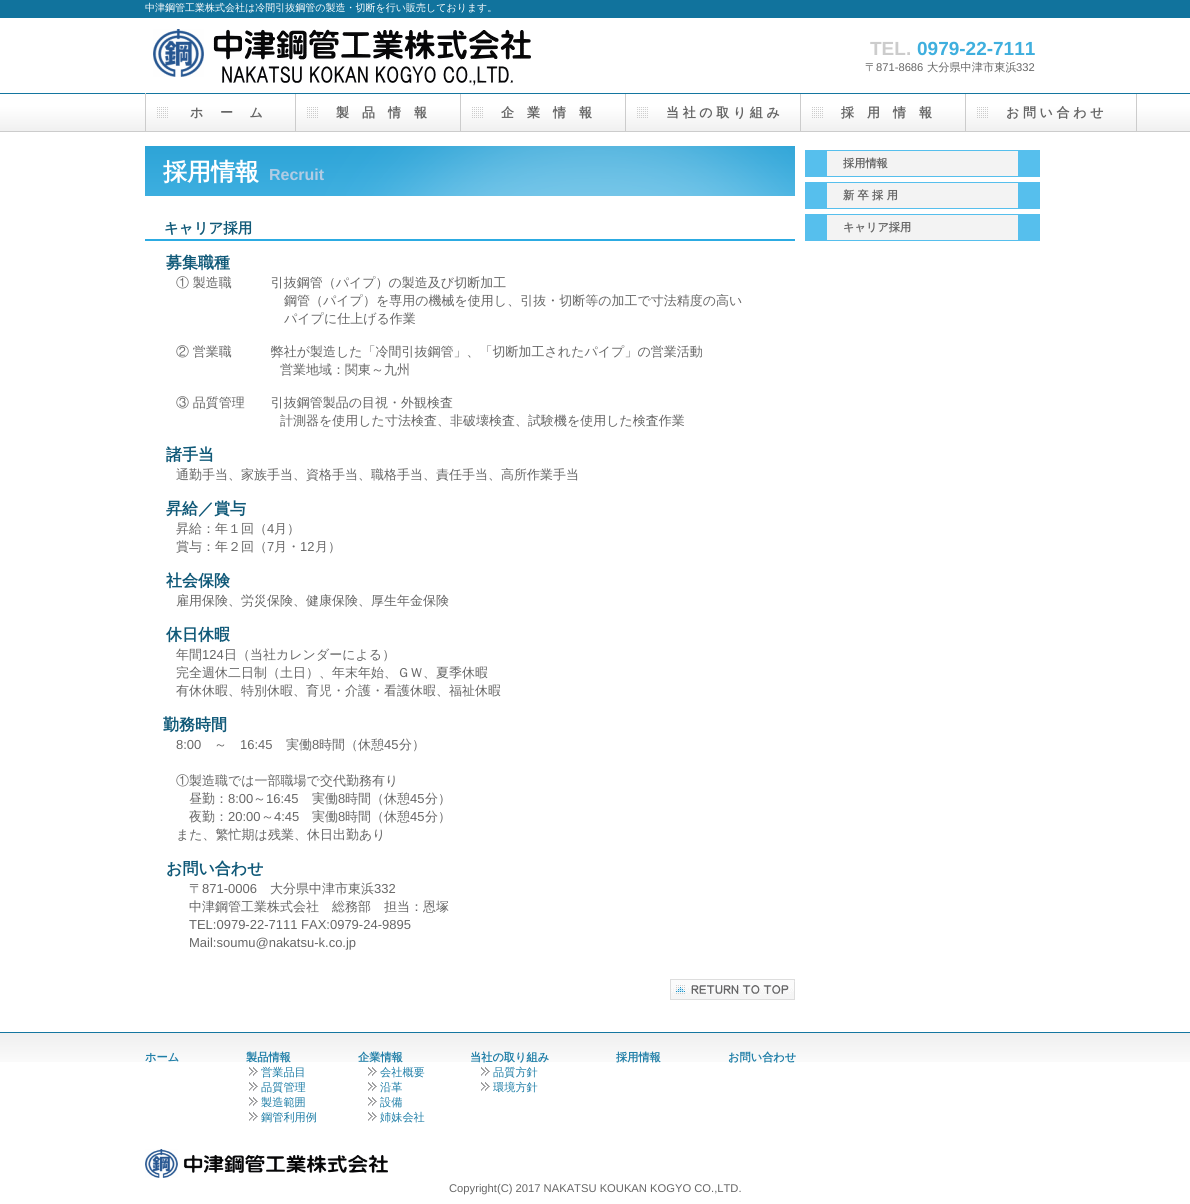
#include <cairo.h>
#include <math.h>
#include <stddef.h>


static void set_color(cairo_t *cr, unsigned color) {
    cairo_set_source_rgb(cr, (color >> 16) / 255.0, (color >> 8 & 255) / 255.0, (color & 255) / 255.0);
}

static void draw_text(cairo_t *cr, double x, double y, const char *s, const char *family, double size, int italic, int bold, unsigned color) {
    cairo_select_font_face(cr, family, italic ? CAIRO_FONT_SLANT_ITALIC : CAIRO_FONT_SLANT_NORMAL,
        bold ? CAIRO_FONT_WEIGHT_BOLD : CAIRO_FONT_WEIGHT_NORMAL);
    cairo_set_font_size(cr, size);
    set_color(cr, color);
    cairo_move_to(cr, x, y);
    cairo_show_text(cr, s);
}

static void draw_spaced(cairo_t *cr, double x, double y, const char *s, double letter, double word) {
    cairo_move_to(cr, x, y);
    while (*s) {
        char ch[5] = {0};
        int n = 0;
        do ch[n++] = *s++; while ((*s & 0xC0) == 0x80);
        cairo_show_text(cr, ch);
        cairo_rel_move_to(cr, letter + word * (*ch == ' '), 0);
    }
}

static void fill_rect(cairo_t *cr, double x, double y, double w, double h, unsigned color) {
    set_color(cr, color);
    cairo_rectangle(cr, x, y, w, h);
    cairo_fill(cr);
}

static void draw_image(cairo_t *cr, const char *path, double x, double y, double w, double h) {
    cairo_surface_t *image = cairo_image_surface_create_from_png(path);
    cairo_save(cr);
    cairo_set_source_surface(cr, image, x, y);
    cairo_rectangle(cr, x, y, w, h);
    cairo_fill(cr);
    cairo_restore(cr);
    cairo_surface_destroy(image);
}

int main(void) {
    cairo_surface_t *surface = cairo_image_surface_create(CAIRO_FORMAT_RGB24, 1190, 1204);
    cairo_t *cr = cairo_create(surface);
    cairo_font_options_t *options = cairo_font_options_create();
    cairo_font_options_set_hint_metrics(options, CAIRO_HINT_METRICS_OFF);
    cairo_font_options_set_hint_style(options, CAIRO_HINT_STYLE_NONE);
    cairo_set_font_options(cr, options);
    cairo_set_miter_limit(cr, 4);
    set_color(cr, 0xFFFFFF);
    cairo_paint(cr);
    draw_image(cr, "assets/img1.png", 0, 0, 1190, 132);
    draw_image(cr, "assets/img2.png", 0, 1032, 1190, 30);
    draw_text(cr, 145, 11, "中津鋼管工業株式会社は冷間引抜鋼管の製造・切断を行い販売しております。", "WenQuanYi Zen Hei Medium", 10, 0, 0, 0xFFFFFF);
    draw_image(cr, "assets/img3.png", 153, 29, 378, 57);
    draw_text(cr, 870, 55, "TEL.", "Liberation Sans", 19, 0, 1, 0xCCCCCC);
    draw_text(cr, 917, 55, "0979-22-7111", "Liberation Sans", 19, 0, 1, 0x3FAFDE);
    draw_text(cr, 865, 71, "〒", "WenQuanYi Zen Hei Medium", 11.2, 0, 0, 0x666666);
    draw_text(cr, 876, 71, "871-8686", "Liberation Sans", 11.2, 0, 0, 0x666666);
    draw_text(cr, 927, 71, "大分県中津市東浜", "WenQuanYi Zen Hei Medium", 11.2, 0, 0, 0x666666);
    draw_text(cr, 1016, 71, "332", "Liberation Sans", 11.2, 0, 0, 0x666666);
    fill_rect(cr, 145, 93, 1, 38, 0xCCCCCC);
    fill_rect(cr, 295, 94, 1, 37, 0xCCCCCC);
    draw_image(cr, "assets/img4.png", 157, 107, 11, 11);
    cairo_select_font_face(cr, "WenQuanYi Zen Hei", CAIRO_FONT_SLANT_NORMAL, CAIRO_FONT_WEIGHT_BOLD);
    cairo_set_font_size(cr, 13);
    set_color(cr, 0x666666);
    draw_spaced(cr, 190, 117, "ホ 　ー 　ム", 0, -0.25);
    fill_rect(cr, 460, 94, 1, 37, 0xCCCCCC);
    draw_image(cr, "assets/img5.png", 307, 107, 11, 11);
    draw_text(cr, 336, 117, "製　品　情　報", "WenQuanYi Zen Hei", 13, 0, 1, 0x666666);
    fill_rect(cr, 625, 94, 1, 37, 0xCCCCCC);
    draw_image(cr, "assets/img5.png", 472, 107, 11, 11);
    draw_text(cr, 501, 117, "企　業　情　報", "WenQuanYi Zen Hei", 13, 0, 1, 0x666666);
    fill_rect(cr, 800, 94, 1, 37, 0xCCCCCC);
    draw_image(cr, "assets/img6.png", 637, 107, 11, 11);
    set_color(cr, 0x666666);
    draw_spaced(cr, 666, 117, "当 社 の 取 り 組 み", 0, -0.25);
    fill_rect(cr, 965, 94, 1, 37, 0xCCCCCC);
    draw_image(cr, "assets/img5.png", 812, 107, 11, 11);
    draw_text(cr, 841, 117, "採　用　情　報", "WenQuanYi Zen Hei", 13, 0, 1, 0x666666);
    fill_rect(cr, 1136, 94, 1, 37, 0xCCCCCC);
    draw_image(cr, "assets/img5.png", 977, 107, 11, 11);
    set_color(cr, 0x666666);
    draw_spaced(cr, 1006, 117, "お 問 い 合 わ せ", 0, -0.25);
    draw_image(cr, "assets/img7.png", 145, 146, 650, 50);
    draw_text(cr, 163, 180, "採用情報", "WenQuanYi Zen Hei", 24, 0, 1, 0xFFFFFF);
    draw_text(cr, 269, 180, "Recruit", "Liberation Sans", 16, 0, 1, 0xB1CCE4);
    fill_rect(cr, 145, 239, 650, 2, 0x2CABE2);
    draw_text(cr, 164, 233, "キャリア採用", "WenQuanYi Zen Hei", 14.5, 0, 1, 0x105978);
    draw_text(cr, 166, 268, "募集職種", "WenQuanYi Zen Hei", 16, 0, 1, 0x105978);
    cairo_select_font_face(cr, "WenQuanYi Zen Hei Medium", CAIRO_FONT_SLANT_NORMAL, CAIRO_FONT_WEIGHT_NORMAL);
    cairo_set_font_size(cr, 13);
    set_color(cr, 0x666666);
    draw_spaced(cr, 176, 287, "① 製造職　　　引抜鋼管（パイプ）の製造及び切断加工", 0, -0.25);
    draw_text(cr, 284, 305, "鋼管（パイプ）を専用の機械を使用し、引抜・切断等の加工で寸法精度の高い", "WenQuanYi Zen Hei Medium", 13, 0, 0, 0x666666);
    draw_text(cr, 284, 323, "パイプに仕上げる作業", "WenQuanYi Zen Hei Medium", 13, 0, 0, 0x666666);
    draw_spaced(cr, 176, 356, "② 営業職　　　弊社が製造した「冷間引抜鋼管」、「切断加工されたパイプ」の営業活動", 0, -0.25);
    draw_text(cr, 280, 374, "営業地域：関東～九州", "WenQuanYi Zen Hei Medium", 13, 0, 0, 0x666666);
    draw_spaced(cr, 176, 407, "③ 品質管理　　引抜鋼管製品の目視・外観検査", 0, -0.25);
    draw_text(cr, 280, 425, "計測器を使用した寸法検査、非破壊検査、試験機を使用した検査作業", "WenQuanYi Zen Hei Medium", 13, 0, 0, 0x666666);
    draw_text(cr, 166, 460, "諸手当", "WenQuanYi Zen Hei", 16, 0, 1, 0x105978);
    draw_text(cr, 176, 479, "通勤手当、家族手当、資格手当、職格手当、責任手当、高所作業手当", "WenQuanYi Zen Hei Medium", 13, 0, 0, 0x666666);
    draw_text(cr, 166, 514, "昇給／賞与", "WenQuanYi Zen Hei", 16, 0, 1, 0x105978);
    draw_text(cr, 176, 533, "昇給：年１回（", "WenQuanYi Zen Hei Medium", 13, 0, 0, 0x666666);
    draw_text(cr, 267, 533, "4", "Liberation Sans", 13, 0, 0, 0x666666);
    draw_text(cr, 274, 533, "月）", "WenQuanYi Zen Hei Medium", 13, 0, 0, 0x666666);
    draw_text(cr, 176, 551, "賞与：年２回（", "WenQuanYi Zen Hei Medium", 13, 0, 0, 0x666666);
    draw_text(cr, 267, 551, "7", "Liberation Sans", 13, 0, 0, 0x666666);
    draw_text(cr, 274, 551, "月・", "WenQuanYi Zen Hei Medium", 13, 0, 0, 0x666666);
    draw_text(cr, 300, 551, "12", "Liberation Sans", 13, 0, 0, 0x666666);
    draw_text(cr, 315, 551, "月）", "WenQuanYi Zen Hei Medium", 13, 0, 0, 0x666666);
    draw_text(cr, 166, 586, "社会保険", "WenQuanYi Zen Hei", 16, 0, 1, 0x105978);
    draw_text(cr, 176, 605, "雇用保険、労災保険、健康保険、厚生年金保険", "WenQuanYi Zen Hei Medium", 13, 0, 0, 0x666666);
    draw_text(cr, 166, 640, "休日休暇", "WenQuanYi Zen Hei", 16, 0, 1, 0x105978);
    draw_text(cr, 176, 659, "年間", "WenQuanYi Zen Hei Medium", 13, 0, 0, 0x666666);
    draw_text(cr, 202, 659, "124", "Liberation Sans", 13, 0, 0, 0x666666);
    draw_text(cr, 224, 659, "日（当社カレンダーによる）", "WenQuanYi Zen Hei Medium", 13, 0, 0, 0x666666);
    draw_text(cr, 176, 677, "完全週休二日制（土日）、年末年始、ＧＷ、夏季休暇", "WenQuanYi Zen Hei Medium", 13, 0, 0, 0x666666);
    draw_text(cr, 176, 695, "有休休暇、特別休暇、育児・介護・看護休暇、福祉休暇", "WenQuanYi Zen Hei Medium", 13, 0, 0, 0x666666);
    draw_text(cr, 163, 730, "勤務時間", "WenQuanYi Zen Hei", 16, 0, 1, 0x105978);
    draw_text(cr, 176, 749, "8:00", "Liberation Sans", 13, 0, 0, 0x666666);
    draw_text(cr, 214, 749, "～", "WenQuanYi Zen Hei Medium", 13, 0, 0, 0x666666);
    draw_text(cr, 240, 749, "16:45", "Liberation Sans", 13, 0, 0, 0x666666);
    draw_text(cr, 286, 749, "実働", "WenQuanYi Zen Hei Medium", 13, 0, 0, 0x666666);
    draw_text(cr, 312, 749, "8", "Liberation Sans", 13, 0, 0, 0x666666);
    draw_text(cr, 319, 749, "時間（休憩", "WenQuanYi Zen Hei Medium", 13, 0, 0, 0x666666);
    draw_text(cr, 384, 749, "45", "Liberation Sans", 13, 0, 0, 0x666666);
    draw_text(cr, 399, 749, "分）", "WenQuanYi Zen Hei Medium", 13, 0, 0, 0x666666);
    draw_text(cr, 176, 785, "①製造職では一部職場で交代勤務有り", "WenQuanYi Zen Hei Medium", 13, 0, 0, 0x666666);
    draw_text(cr, 189, 803, "昼勤：", "WenQuanYi Zen Hei Medium", 13, 0, 0, 0x666666);
    draw_text(cr, 228, 803, "8:00", "Liberation Sans", 13, 0, 0, 0x666666);
    draw_text(cr, 253, 803, "～", "WenQuanYi Zen Hei Medium", 13, 0, 0, 0x666666);
    draw_text(cr, 266, 803, "16:45", "Liberation Sans", 13, 0, 0, 0x666666);
    draw_text(cr, 312, 803, "実働", "WenQuanYi Zen Hei Medium", 13, 0, 0, 0x666666);
    draw_text(cr, 338, 803, "8", "Liberation Sans", 13, 0, 0, 0x666666);
    draw_text(cr, 345, 803, "時間（休憩", "WenQuanYi Zen Hei Medium", 13, 0, 0, 0x666666);
    draw_text(cr, 410, 803, "45", "Liberation Sans", 13, 0, 0, 0x666666);
    draw_text(cr, 425, 803, "分）", "WenQuanYi Zen Hei Medium", 13, 0, 0, 0x666666);
    draw_text(cr, 189, 821, "夜勤：", "WenQuanYi Zen Hei Medium", 13, 0, 0, 0x666666);
    draw_text(cr, 228, 821, "20:00", "Liberation Sans", 13, 0, 0, 0x666666);
    draw_text(cr, 261, 821, "～", "WenQuanYi Zen Hei Medium", 13, 0, 0, 0x666666);
    draw_text(cr, 274, 821, "4:45", "Liberation Sans", 13, 0, 0, 0x666666);
    draw_text(cr, 312, 821, "実働", "WenQuanYi Zen Hei Medium", 13, 0, 0, 0x666666);
    draw_text(cr, 338, 821, "8", "Liberation Sans", 13, 0, 0, 0x666666);
    draw_text(cr, 345, 821, "時間（休憩", "WenQuanYi Zen Hei Medium", 13, 0, 0, 0x666666);
    draw_text(cr, 410, 821, "45", "Liberation Sans", 13, 0, 0, 0x666666);
    draw_text(cr, 425, 821, "分）", "WenQuanYi Zen Hei Medium", 13, 0, 0, 0x666666);
    draw_text(cr, 176, 839, "また、繁忙期は残業、休日出勤あり", "WenQuanYi Zen Hei Medium", 13, 0, 0, 0x666666);
    draw_text(cr, 166, 874, "お問い合わせ", "WenQuanYi Zen Hei", 16, 0, 1, 0x105978);
    draw_text(cr, 189, 893, "〒", "WenQuanYi Zen Hei Medium", 13, 0, 0, 0x666666);
    draw_text(cr, 202, 893, "871-0006", "Liberation Sans", 13, 0, 0, 0x666666);
    draw_text(cr, 270, 893, "大分県中津市東浜", "WenQuanYi Zen Hei Medium", 13, 0, 0, 0x666666);
    draw_text(cr, 374, 893, "332", "Liberation Sans", 13, 0, 0, 0x666666);
    draw_text(cr, 189, 911, "中津鋼管工業株式会社　総務部　担当：恩塚", "WenQuanYi Zen Hei Medium", 13, 0, 0, 0x666666);
    draw_text(cr, 189, 929, "TEL:0979-22-7111 FAX:0979-24-9895", "Liberation Sans", 13, 0, 0, 0x666666);
    draw_text(cr, 189, 947, "Mail:soumu@nakatsu-k.co.jp", "Liberation Sans", 13, 0, 0, 0x666666);
    draw_image(cr, "assets/img8.png", 670, 979, 125, 21);
    fill_rect(cr, 827, 151, 191, 25, 0xF3F3F3);
    fill_rect(cr, 827, 150, 191, 1, 0x56BFED);
    fill_rect(cr, 1018, 150, 22, 26, 0x56BFED);
    fill_rect(cr, 827, 176, 213, 1, 0x56BFED);
    fill_rect(cr, 805, 150, 22, 27, 0x56BFED);
    draw_text(cr, 843, 167, "採用情報", "WenQuanYi Zen Hei", 11.2, 0, 1, 0x666666);
    fill_rect(cr, 827, 183, 191, 25, 0xF3F3F3);
    fill_rect(cr, 827, 182, 191, 1, 0x56BFED);
    fill_rect(cr, 1018, 182, 22, 26, 0x56BFED);
    fill_rect(cr, 827, 208, 213, 1, 0x56BFED);
    fill_rect(cr, 805, 182, 22, 27, 0x56BFED);
    draw_text(cr, 843, 199, "新 卒 採 用", "WenQuanYi Zen Hei", 11.2, 0, 1, 0x666666);
    fill_rect(cr, 827, 215, 191, 25, 0xF3F3F3);
    fill_rect(cr, 827, 214, 191, 1, 0x56BFED);
    fill_rect(cr, 1018, 214, 22, 26, 0x56BFED);
    fill_rect(cr, 827, 240, 213, 1, 0x56BFED);
    fill_rect(cr, 805, 214, 22, 27, 0x56BFED);
    draw_text(cr, 843, 231, "キャリア採用", "WenQuanYi Zen Hei", 11.2, 0, 1, 0x666666);
    draw_text(cr, 145, 1061, "ホーム", "WenQuanYi Zen Hei", 11.2, 0, 1, 0x1F7EA7);
    draw_text(cr, 246, 1061, "製品情報", "WenQuanYi Zen Hei", 11.2, 0, 1, 0x1F7EA7);
    draw_text(cr, 358, 1061, "企業情報", "WenQuanYi Zen Hei", 11.2, 0, 1, 0x1F7EA7);
    draw_text(cr, 470, 1061, "当社の取り組み", "WenQuanYi Zen Hei", 11.2, 0, 1, 0x1F7EA7);
    draw_text(cr, 616, 1061, "採用情報", "WenQuanYi Zen Hei", 11.2, 0, 1, 0x1F7EA7);
    draw_text(cr, 728, 1061, "お問い合わせ", "WenQuanYi Zen Hei", 11.2, 0, 1, 0x1F7EA7);
    draw_image(cr, "assets/img9.png", 249, 1067, 9, 9);
    draw_text(cr, 261, 1076, "営業品目", "WenQuanYi Zen Hei Medium", 11.2, 0, 0, 0x1F7EA7);
    draw_image(cr, "assets/img9.png", 368, 1067, 9, 9);
    draw_text(cr, 380, 1076, "会社概要", "WenQuanYi Zen Hei Medium", 11.2, 0, 0, 0x1F7EA7);
    draw_image(cr, "assets/img9.png", 481, 1067, 9, 9);
    draw_text(cr, 493, 1076, "品質方針", "WenQuanYi Zen Hei Medium", 11.2, 0, 0, 0x1F7EA7);
    draw_image(cr, "assets/img9.png", 249, 1082, 9, 9);
    draw_text(cr, 261, 1091, "品質管理", "WenQuanYi Zen Hei Medium", 11.2, 0, 0, 0x1F7EA7);
    draw_image(cr, "assets/img9.png", 368, 1082, 9, 9);
    draw_text(cr, 380, 1091, "沿革", "WenQuanYi Zen Hei Medium", 11.2, 0, 0, 0x1F7EA7);
    draw_image(cr, "assets/img9.png", 481, 1082, 9, 9);
    draw_text(cr, 493, 1091, "環境方針", "WenQuanYi Zen Hei Medium", 11.2, 0, 0, 0x1F7EA7);
    draw_image(cr, "assets/img9.png", 249, 1097, 9, 9);
    draw_text(cr, 261, 1106, "製造範囲", "WenQuanYi Zen Hei Medium", 11.2, 0, 0, 0x1F7EA7);
    draw_image(cr, "assets/img9.png", 368, 1097, 9, 9);
    draw_text(cr, 380, 1106, "設備", "WenQuanYi Zen Hei Medium", 11.2, 0, 0, 0x1F7EA7);
    draw_image(cr, "assets/img9.png", 249, 1112, 9, 9);
    draw_text(cr, 261, 1121, "鋼管利用例", "WenQuanYi Zen Hei Medium", 11.2, 0, 0, 0x1F7EA7);
    draw_image(cr, "assets/img9.png", 368, 1112, 9, 9);
    draw_text(cr, 380, 1121, "姉妹会社", "WenQuanYi Zen Hei Medium", 11.2, 0, 0, 0x1F7EA7);
    draw_image(cr, "assets/img10.png", 145, 1149, 243, 29);
    draw_text(cr, 449, 1192, "Copyright(C) 2017 NAKATSU KOUKAN KOGYO CO.,LTD.", "Liberation Sans", 11.2, 0, 0, 0x666666);
    cairo_surface_write_to_png(surface, "output.png");
    cairo_font_options_destroy(options);
    cairo_destroy(cr);
    cairo_surface_destroy(surface);
    return 0;
}
